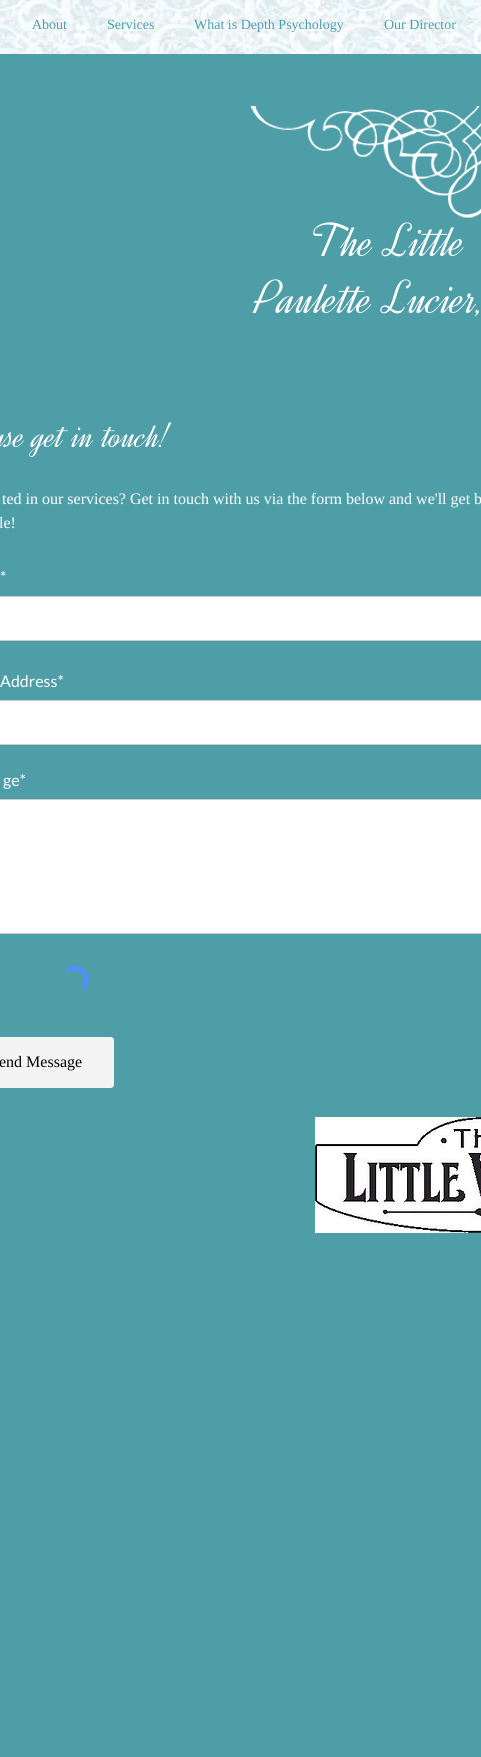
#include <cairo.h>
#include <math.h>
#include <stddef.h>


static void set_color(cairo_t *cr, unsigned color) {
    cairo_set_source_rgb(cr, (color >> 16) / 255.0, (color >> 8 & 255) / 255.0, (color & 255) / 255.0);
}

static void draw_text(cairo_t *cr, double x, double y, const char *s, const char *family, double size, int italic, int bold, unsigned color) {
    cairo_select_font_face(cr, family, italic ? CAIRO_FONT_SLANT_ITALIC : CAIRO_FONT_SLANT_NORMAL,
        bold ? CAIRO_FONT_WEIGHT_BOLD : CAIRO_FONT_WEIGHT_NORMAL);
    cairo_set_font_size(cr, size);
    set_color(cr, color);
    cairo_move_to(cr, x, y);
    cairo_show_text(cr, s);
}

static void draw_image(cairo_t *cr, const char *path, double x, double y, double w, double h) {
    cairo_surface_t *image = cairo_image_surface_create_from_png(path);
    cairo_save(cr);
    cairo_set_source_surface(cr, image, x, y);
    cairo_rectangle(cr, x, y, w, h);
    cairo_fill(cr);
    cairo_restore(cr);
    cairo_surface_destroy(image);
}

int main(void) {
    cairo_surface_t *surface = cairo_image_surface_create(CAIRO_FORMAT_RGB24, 481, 1757);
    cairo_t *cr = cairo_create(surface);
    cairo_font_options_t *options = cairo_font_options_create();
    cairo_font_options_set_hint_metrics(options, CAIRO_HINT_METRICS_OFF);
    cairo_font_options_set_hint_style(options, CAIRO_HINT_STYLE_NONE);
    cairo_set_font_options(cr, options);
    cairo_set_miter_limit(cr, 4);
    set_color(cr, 0x4E9EA8);
    cairo_paint(cr);
    draw_image(cr, "assets/img1.png", 0, 0, 481, 54);
    draw_text(cr, 32, 29, "About", "Liberation Serif", 14, 0, 0, 0x4E9EA8);
    draw_text(cr, 107, 29, "Services", "Liberation Serif", 14, 0, 0, 0x4E9EA8);
    draw_text(cr, 194, 29, "What is Depth Psychology", "Liberation Serif", 14, 0, 0, 0x4E9EA8);
    draw_text(cr, 384, 29, "Our Director", "Liberation Serif", 14, 0, 0, 0x4E9EA8);
    draw_image(cr, "assets/img2.png", 251, 106, 230, 112);
    draw_text(cr, 312, 256, "The Little", "Dynalight Light", 48, 0, 0, 0xFFFFFF);
    draw_text(cr, 255, 313, "Paulette Lucier,", "Dynalight Light", 48, 0, 0, 0xFFFFFF);
    draw_text(cr, -6, 447, "ase get in touch!", "Dynalight Light", 36, 0, 0, 0xFFFFFF);
    draw_text(cr, 2, 504, "ted in our services? Get in touch with us via the form below and we'll get b", "Liberation Serif", 16, 0, 0, 0xFFFFFF);
    draw_text(cr, -1, 528, "le!", "Liberation Serif", 16, 0, 0, 0xFFFFFF);
    draw_text(cr, 0, 583, "*", "Lato", 16, 0, 0, 0xFFFFFF);
    cairo_rectangle(cr, -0.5, 596.5, 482, 44);
    cairo_fill_preserve(cr);
    set_color(cr, 0xCCCCCC);
    cairo_set_line_width(cr, 1);
    cairo_stroke(cr);
    draw_text(cr, 0, 687, "Address*", "Lato", 16, 0, 0, 0xFFFFFF);
    cairo_rectangle(cr, -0.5, 700.5, 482, 44);
    cairo_fill_preserve(cr);
    set_color(cr, 0xCCCCCC);
    cairo_stroke(cr);
    draw_text(cr, 3, 786, "ge*", "Lato", 16, 0, 0, 0xFFFFFF);
    cairo_rectangle(cr, -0.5, 799.5, 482, 134);
    cairo_fill_preserve(cr);
    set_color(cr, 0xCCCCCC);
    cairo_stroke(cr);
    cairo_new_path(cr);
    cairo_move_to(cr, 67, 971.5);
    cairo_curve_to(cr, 77.5, 961, 94, 977, 83, 988);
    set_color(cr, 0x4D90FE);
    cairo_set_line_width(cr, 4.6);
    cairo_stroke(cr);
    set_color(cr, 0xF4F4F4);
    cairo_new_path(cr);
    cairo_move_to(cr, 0, 1037);
    cairo_line_to(cr, 111, 1037);
    cairo_curve_to(cr, 112.5, 1037, 114, 1038.5, 114, 1040);
    cairo_line_to(cr, 114, 1085);
    cairo_curve_to(cr, 114, 1086.5, 112.5, 1088, 111, 1088);
    cairo_line_to(cr, 0, 1088);
    cairo_close_path(cr);
    cairo_fill(cr);
    draw_text(cr, -1, 1067, "end Message", "Liberation Serif", 16, 0, 0, 0x000000);
    draw_image(cr, "assets/img3.png", 315, 1117, 166, 116);
    cairo_surface_write_to_png(surface, "output.png");
    cairo_font_options_destroy(options);
    cairo_destroy(cr);
    cairo_surface_destroy(surface);
    return 0;
}
